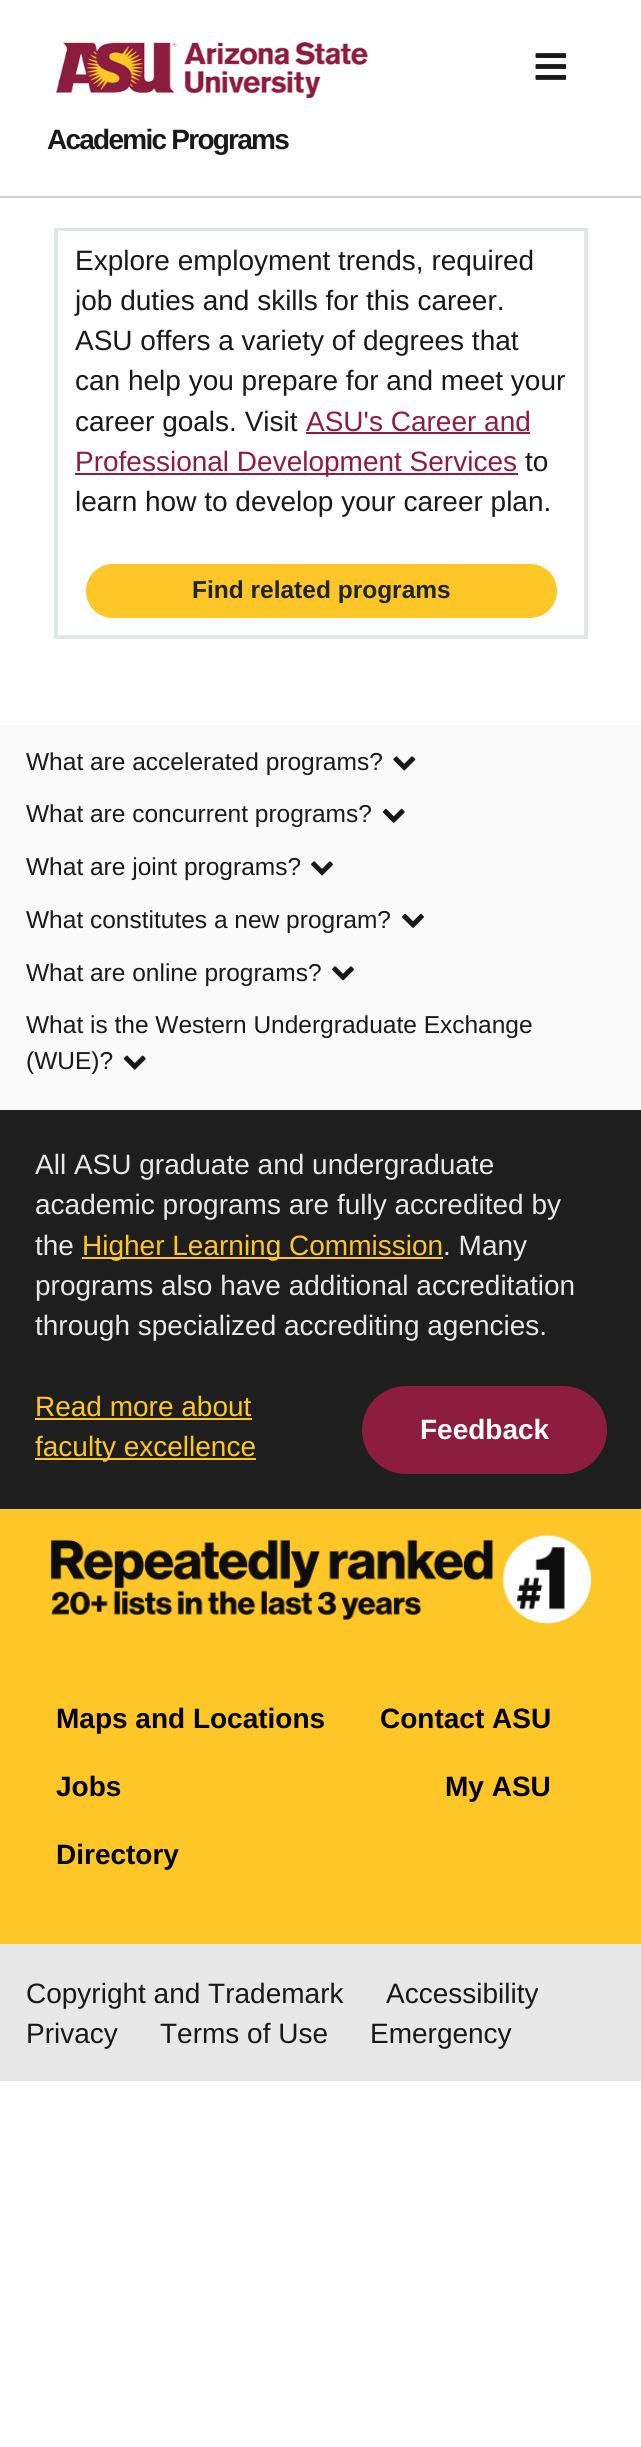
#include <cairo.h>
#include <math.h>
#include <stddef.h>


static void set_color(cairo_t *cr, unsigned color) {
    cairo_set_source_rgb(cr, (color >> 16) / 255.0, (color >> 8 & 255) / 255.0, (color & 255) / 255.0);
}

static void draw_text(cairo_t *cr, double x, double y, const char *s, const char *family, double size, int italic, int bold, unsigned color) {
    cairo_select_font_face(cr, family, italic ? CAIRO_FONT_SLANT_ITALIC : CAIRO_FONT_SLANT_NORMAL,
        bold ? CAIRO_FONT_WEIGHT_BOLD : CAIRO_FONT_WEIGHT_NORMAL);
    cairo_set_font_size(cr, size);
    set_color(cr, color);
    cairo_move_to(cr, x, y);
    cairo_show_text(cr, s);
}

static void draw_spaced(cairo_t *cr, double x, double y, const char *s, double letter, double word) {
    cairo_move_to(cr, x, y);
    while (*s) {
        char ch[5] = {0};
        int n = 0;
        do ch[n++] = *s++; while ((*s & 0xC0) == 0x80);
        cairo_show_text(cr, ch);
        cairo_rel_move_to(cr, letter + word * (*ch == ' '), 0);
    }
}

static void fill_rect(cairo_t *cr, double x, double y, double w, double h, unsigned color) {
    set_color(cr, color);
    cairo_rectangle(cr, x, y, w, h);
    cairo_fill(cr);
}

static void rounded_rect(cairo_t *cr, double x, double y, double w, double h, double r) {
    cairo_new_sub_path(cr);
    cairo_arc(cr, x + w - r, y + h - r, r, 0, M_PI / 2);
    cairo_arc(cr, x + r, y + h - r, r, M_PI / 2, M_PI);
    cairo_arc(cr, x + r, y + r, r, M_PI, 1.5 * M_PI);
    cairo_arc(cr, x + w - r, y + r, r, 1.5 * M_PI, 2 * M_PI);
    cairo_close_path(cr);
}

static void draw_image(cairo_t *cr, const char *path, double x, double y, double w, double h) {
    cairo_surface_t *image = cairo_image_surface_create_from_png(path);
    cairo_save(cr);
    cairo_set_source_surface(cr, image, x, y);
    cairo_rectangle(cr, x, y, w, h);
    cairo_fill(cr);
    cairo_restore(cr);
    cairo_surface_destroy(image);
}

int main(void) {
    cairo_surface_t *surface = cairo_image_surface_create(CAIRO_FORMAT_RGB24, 641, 2447);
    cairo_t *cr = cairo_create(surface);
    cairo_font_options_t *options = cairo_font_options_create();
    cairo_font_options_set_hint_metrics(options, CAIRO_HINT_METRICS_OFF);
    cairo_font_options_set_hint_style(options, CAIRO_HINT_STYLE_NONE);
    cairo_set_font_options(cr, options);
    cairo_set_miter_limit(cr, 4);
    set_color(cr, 0xFFFFFF);
    cairo_paint(cr);
    fill_rect(cr, 0, 196, 641, 2, 0xD0D0D0);
    draw_image(cr, "assets/img1.png", 56, 42, 312, 56);
    draw_image(cr, "assets/img2.png", 535, 53, 32, 27);
    cairo_select_font_face(cr, "Liberation Sans", CAIRO_FONT_SLANT_NORMAL, CAIRO_FONT_WEIGHT_BOLD);
    cairo_set_font_size(cr, 28);
    set_color(cr, 0x191919);
    draw_spaced(cr, 47, 149, "Academic Programs", -1.75, 0);
    cairo_rectangle(cr, 55, 229, 532, 409);
    set_color(cr, 0xE3E6E6);
    cairo_stroke(cr);
    cairo_rectangle(cr, 57, 230, 528, 406);
    cairo_stroke(cr);
    draw_text(cr, 75, 270, "Explore employment trends, required", "Liberation Sans", 28, 0, 0, 0x191919);
    draw_text(cr, 75, 310, "job duties and skills for this career.", "Liberation Sans", 28, 0, 0, 0x191919);
    draw_text(cr, 75, 350, "ASU offers a variety of degrees that", "Liberation Sans", 28, 0, 0, 0x191919);
    draw_text(cr, 75, 390, "can help you prepare for and meet your", "Liberation Sans", 28, 0, 0, 0x191919);
    draw_text(cr, 75, 431, "career goals. Visit", "Liberation Sans", 28, 0, 0, 0x191919);
    draw_text(cr, 306, 431, "ASU's Career and", "Liberation Sans", 28, 0, 0, 0x8C1D40);
    fill_rect(cr, 306, 432, 224, 2, 0x8C1D40);
    fill_rect(cr, 75, 473, 443, 2, 0x8C1D40);
    draw_text(cr, 75, 471, "Professional Development Services", "Liberation Sans", 28, 0, 0, 0x8C1D40);
    draw_text(cr, 525, 471, "to", "Liberation Sans", 28, 0, 0, 0x191919);
    draw_text(cr, 75, 511, "learn how to develop your career plan.", "Liberation Sans", 28, 0, 0, 0x191919);
    set_color(cr, 0xFFC627);
    rounded_rect(cr, 87, 565, 469, 52, 26);
    cairo_fill_preserve(cr);
    cairo_stroke(cr);
    draw_text(cr, 192, 598, "Find related programs", "Liberation Sans", 24.5, 0, 1, 0x212529);
    fill_rect(cr, 0, 725, 641, 385, 0xFAFAFA);
    draw_text(cr, 26, 770, "What are accelerated programs?", "Liberation Sans", 24.5, 0, 0, 0x191919);
    draw_image(cr, "assets/img3.png", 393, 756, 23, 15);
    draw_text(cr, 26, 822, "What are concurrent programs?", "Liberation Sans", 24.5, 0, 0, 0x191919);
    draw_image(cr, "assets/img4.png", 382, 808, 23, 15);
    draw_text(cr, 26, 875, "What are joint programs?", "Liberation Sans", 24.5, 0, 0, 0x191919);
    draw_image(cr, "assets/img5.png", 311, 861, 22, 15);
    draw_text(cr, 26, 928, "What constitutes a new program?", "Liberation Sans", 24.5, 0, 0, 0x191919);
    draw_image(cr, "assets/img6.png", 402, 913, 22, 15);
    draw_text(cr, 26, 981, "What are online programs?", "Liberation Sans", 24.5, 0, 0, 0x191919);
    draw_image(cr, "assets/img5.png", 332, 966, 22, 15);
    draw_text(cr, 26, 1033, "What is the Western Undergraduate Exchange", "Liberation Sans", 24.5, 0, 0, 0x191919);
    draw_text(cr, 26, 1069, "(WUE)?", "Liberation Sans", 24.5, 0, 0, 0x191919);
    draw_image(cr, "assets/img7.png", 123, 1055, 23, 15);
    fill_rect(cr, 0, 1110, 641, 399, 0x1E1E1E);
    draw_text(cr, 35, 1174, "All ASU graduate and undergraduate", "Liberation Sans", 28, 0, 0, 0xE8E8E8);
    draw_text(cr, 35, 1214, "academic programs are fully accredited by", "Liberation Sans", 28, 0, 0, 0xE8E8E8);
    draw_text(cr, 35, 1255, "the", "Liberation Sans", 28, 0, 0, 0xE8E8E8);
    fill_rect(cr, 82, 1257, 361, 2, 0xFFC627);
    draw_text(cr, 82, 1255, "Higher Learning Commission", "Liberation Sans", 28, 0, 0, 0xFFC627);
    draw_text(cr, 443, 1255, ". Many", "Liberation Sans", 28, 0, 0, 0xE8E8E8);
    draw_text(cr, 35, 1295, "programs also have additional accreditation", "Liberation Sans", 28, 0, 0, 0xE8E8E8);
    draw_text(cr, 35, 1335, "through specialized accrediting agencies.", "Liberation Sans", 28, 0, 0, 0xE8E8E8);
    draw_text(cr, 35, 1416, "Read more about", "Liberation Sans", 28, 0, 0, 0xFFC627);
    fill_rect(cr, 35, 1418, 217, 2, 0xFFC627);
    fill_rect(cr, 35, 1458, 221, 2, 0xFFC627);
    draw_text(cr, 35, 1456, "faculty excellence", "Liberation Sans", 28, 0, 0, 0xFFC627);
    set_color(cr, 0x8C1D40);
    rounded_rect(cr, 363, 1387, 243, 86, 43);
    cairo_fill_preserve(cr);
    cairo_stroke(cr);
    draw_text(cr, 420, 1439, "Feedback", "Liberation Sans", 28, 0, 1, 0xFFFFFF);
    fill_rect(cr, 0, 1509, 641, 435, 0xFFC627);
    draw_image(cr, "assets/img8.png", 50, 1534, 542, 91);
    draw_text(cr, 56, 1728, "Maps and Locations", "Liberation Sans", 28, 0, 1, 0x000000);
    draw_text(cr, 380, 1728, "Contact ASU", "Liberation Sans", 28, 0, 1, 0x000000);
    draw_text(cr, 56, 1796, "Jobs", "Liberation Sans", 28, 0, 1, 0x000000);
    draw_text(cr, 445, 1796, "My ASU", "Liberation Sans", 28, 0, 1, 0x000000);
    draw_text(cr, 56, 1864, "Directory", "Liberation Sans", 28, 0, 1, 0x000000);
    fill_rect(cr, 0, 1944, 641, 137, 0xE8E8E8);
    draw_text(cr, 26, 2003, "Copyright and Trademark", "Liberation Sans", 28, 0, 0, 0x191919);
    draw_text(cr, 386, 2003, "Accessibility", "Liberation Sans", 28, 0, 0, 0x191919);
    draw_text(cr, 26, 2043, "Privacy", "Liberation Sans", 28, 0, 0, 0x191919);
    draw_text(cr, 160, 2043, "Terms of Use", "Liberation Sans", 28, 0, 0, 0x191919);
    draw_text(cr, 370, 2043, "Emergency", "Liberation Sans", 28, 0, 0, 0x191919);
    cairo_surface_write_to_png(surface, "output.png");
    cairo_font_options_destroy(options);
    cairo_destroy(cr);
    cairo_surface_destroy(surface);
    return 0;
}
